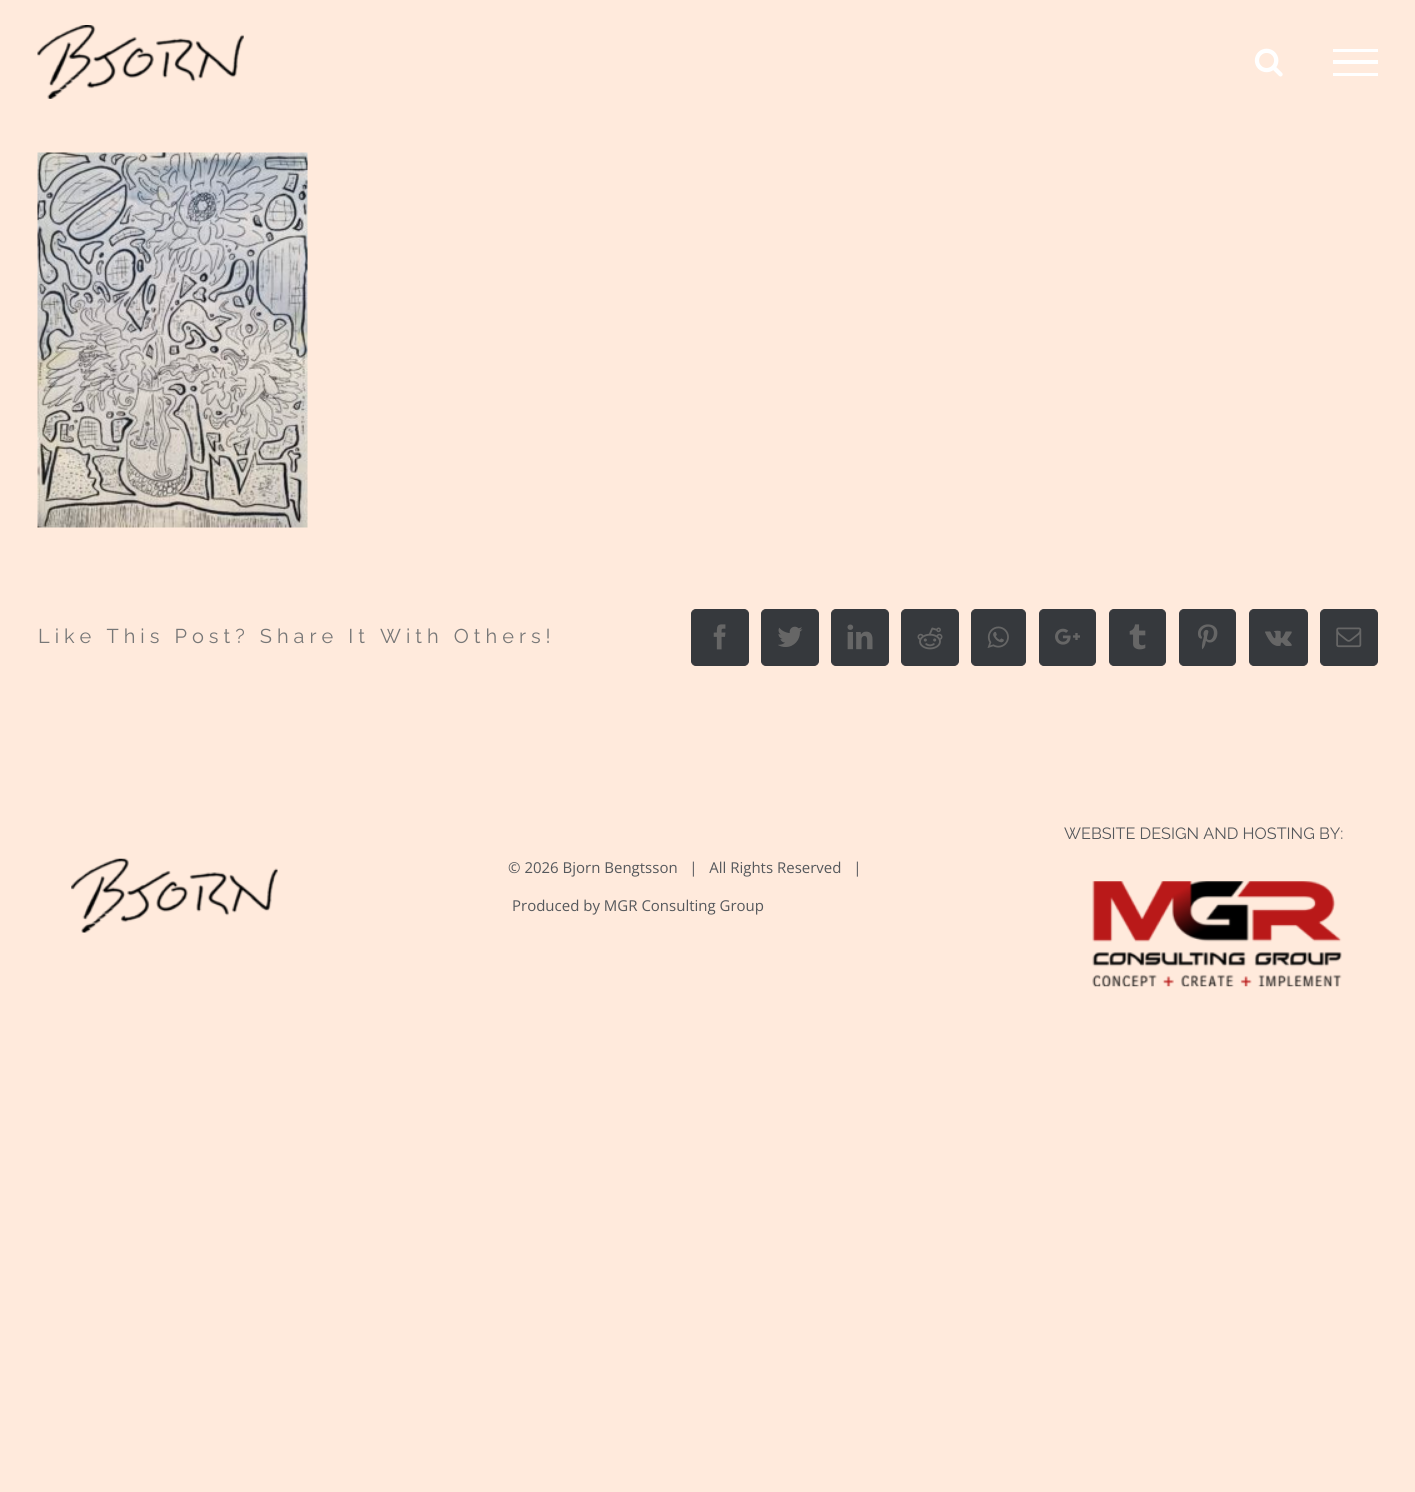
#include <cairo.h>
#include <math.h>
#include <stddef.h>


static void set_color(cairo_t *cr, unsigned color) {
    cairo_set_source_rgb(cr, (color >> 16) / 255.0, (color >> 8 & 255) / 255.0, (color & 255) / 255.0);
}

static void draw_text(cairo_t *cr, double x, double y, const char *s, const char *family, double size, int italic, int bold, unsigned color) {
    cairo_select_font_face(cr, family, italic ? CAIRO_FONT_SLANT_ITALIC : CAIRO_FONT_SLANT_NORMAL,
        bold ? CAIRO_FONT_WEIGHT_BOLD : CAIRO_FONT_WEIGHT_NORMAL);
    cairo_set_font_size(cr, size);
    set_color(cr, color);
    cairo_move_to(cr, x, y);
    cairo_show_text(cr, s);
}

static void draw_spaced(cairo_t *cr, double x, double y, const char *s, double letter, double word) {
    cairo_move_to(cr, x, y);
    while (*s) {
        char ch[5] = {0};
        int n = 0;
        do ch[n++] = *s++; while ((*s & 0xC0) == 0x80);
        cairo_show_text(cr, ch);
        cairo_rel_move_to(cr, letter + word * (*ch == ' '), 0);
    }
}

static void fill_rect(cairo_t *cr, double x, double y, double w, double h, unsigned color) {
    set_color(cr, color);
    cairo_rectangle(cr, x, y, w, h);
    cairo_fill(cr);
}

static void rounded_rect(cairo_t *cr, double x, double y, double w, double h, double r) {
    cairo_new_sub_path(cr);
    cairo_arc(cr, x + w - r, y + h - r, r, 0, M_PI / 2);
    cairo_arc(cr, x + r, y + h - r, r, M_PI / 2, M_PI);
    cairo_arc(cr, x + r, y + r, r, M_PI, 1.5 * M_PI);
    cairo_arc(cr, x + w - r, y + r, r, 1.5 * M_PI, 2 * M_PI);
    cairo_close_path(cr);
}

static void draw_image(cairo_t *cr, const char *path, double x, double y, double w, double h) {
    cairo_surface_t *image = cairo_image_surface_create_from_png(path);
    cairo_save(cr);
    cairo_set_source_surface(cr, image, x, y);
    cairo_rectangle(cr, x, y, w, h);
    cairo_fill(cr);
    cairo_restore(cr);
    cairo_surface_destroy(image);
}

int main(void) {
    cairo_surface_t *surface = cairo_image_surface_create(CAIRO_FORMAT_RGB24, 1415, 1492);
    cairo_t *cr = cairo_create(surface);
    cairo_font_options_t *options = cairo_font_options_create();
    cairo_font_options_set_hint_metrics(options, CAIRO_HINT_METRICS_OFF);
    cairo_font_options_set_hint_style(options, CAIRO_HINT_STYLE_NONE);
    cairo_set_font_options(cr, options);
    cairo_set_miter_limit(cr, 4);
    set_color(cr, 0xFFEADC);
    cairo_paint(cr);
    draw_image(cr, "assets/img1.png", 37, 25, 207, 74);
    draw_image(cr, "assets/img2.png", 1254, 48, 29, 29);
    fill_rect(cr, 1333, 49, 45, 3, 0xFFFFFF);
    fill_rect(cr, 1333, 60, 45, 4, 0xFFFFFF);
    fill_rect(cr, 1333, 73, 45, 3, 0xFFFFFF);
    draw_image(cr, "assets/img3.png", 37, 152, 271, 376);
    cairo_select_font_face(cr, "Raleway Thin", CAIRO_FONT_SLANT_NORMAL, CAIRO_FONT_WEIGHT_NORMAL);
    cairo_set_font_size(cr, 20);
    set_color(cr, 0x777777);
    draw_spaced(cr, 38, 643, "Like This Post? Share It With Others!", 5, 0);
    set_color(cr, 0x36393D);
    rounded_rect(cr, 691.5, 609.5, 57, 56, 4.5);
    cairo_fill_preserve(cr);
    cairo_set_line_width(cr, 1);
    cairo_stroke(cr);
    draw_image(cr, "assets/img4.png", 713, 624, 13, 26);
    rounded_rect(cr, 761.5, 609.5, 57, 56, 4.5);
    cairo_fill_preserve(cr);
    cairo_stroke(cr);
    draw_image(cr, "assets/img5.png", 778, 626, 25, 21);
    rounded_rect(cr, 831.5, 609.5, 57, 56, 4.5);
    cairo_fill_preserve(cr);
    cairo_stroke(cr);
    draw_image(cr, "assets/img6.png", 847, 624, 26, 26);
    rounded_rect(cr, 901.5, 609.5, 57, 56, 4.5);
    cairo_fill_preserve(cr);
    cairo_stroke(cr);
    draw_image(cr, "assets/img7.png", 917, 627, 26, 23);
    rounded_rect(cr, 971.5, 609.5, 54, 56, 4.5);
    cairo_fill_preserve(cr);
    cairo_stroke(cr);
    draw_image(cr, "assets/img8.png", 987, 626, 22, 22);
    rounded_rect(cr, 1039.5, 609.5, 56, 56, 4.5);
    cairo_fill_preserve(cr);
    cairo_stroke(cr);
    draw_image(cr, "assets/img9.png", 1055, 628, 25, 17);
    rounded_rect(cr, 1109.5, 609.5, 56, 56, 4.5);
    cairo_fill_preserve(cr);
    cairo_stroke(cr);
    draw_image(cr, "assets/img10.png", 1129, 624, 17, 26);
    rounded_rect(cr, 1179.5, 609.5, 56, 56, 4.5);
    cairo_fill_preserve(cr);
    cairo_stroke(cr);
    draw_image(cr, "assets/img11.png", 1198, 624, 20, 26);
    rounded_rect(cr, 1249.5, 609.5, 58, 56, 4.5);
    cairo_fill_preserve(cr);
    cairo_stroke(cr);
    draw_image(cr, "assets/img12.png", 1265, 630, 27, 16);
    rounded_rect(cr, 1320.5, 609.5, 57, 56, 4.5);
    cairo_fill_preserve(cr);
    cairo_stroke(cr);
    draw_image(cr, "assets/img13.png", 1336, 627, 26, 21);
    draw_text(cr, 1064, 839, "WEBSITE DESIGN AND HOSTING BY:", "Raleway Thin", 16.25, 0, 0, 0x55585C);
    draw_image(cr, "assets/img14.png", 1092, 881, 250, 106);
    draw_image(cr, "assets/img15.png", 71, 858, 207, 75);
    draw_text(cr, 508, 873, "© 2026 Bjorn Bengtsson   |   All Rights Reserved   |", "Open Sans", 15, 0, 0, 0x55585C);
    draw_text(cr, 512, 911, "Produced by MGR Consulting Group", "Open Sans", 15, 0, 0, 0x55585C);
    cairo_surface_write_to_png(surface, "output.png");
    cairo_font_options_destroy(options);
    cairo_destroy(cr);
    cairo_surface_destroy(surface);
    return 0;
}
